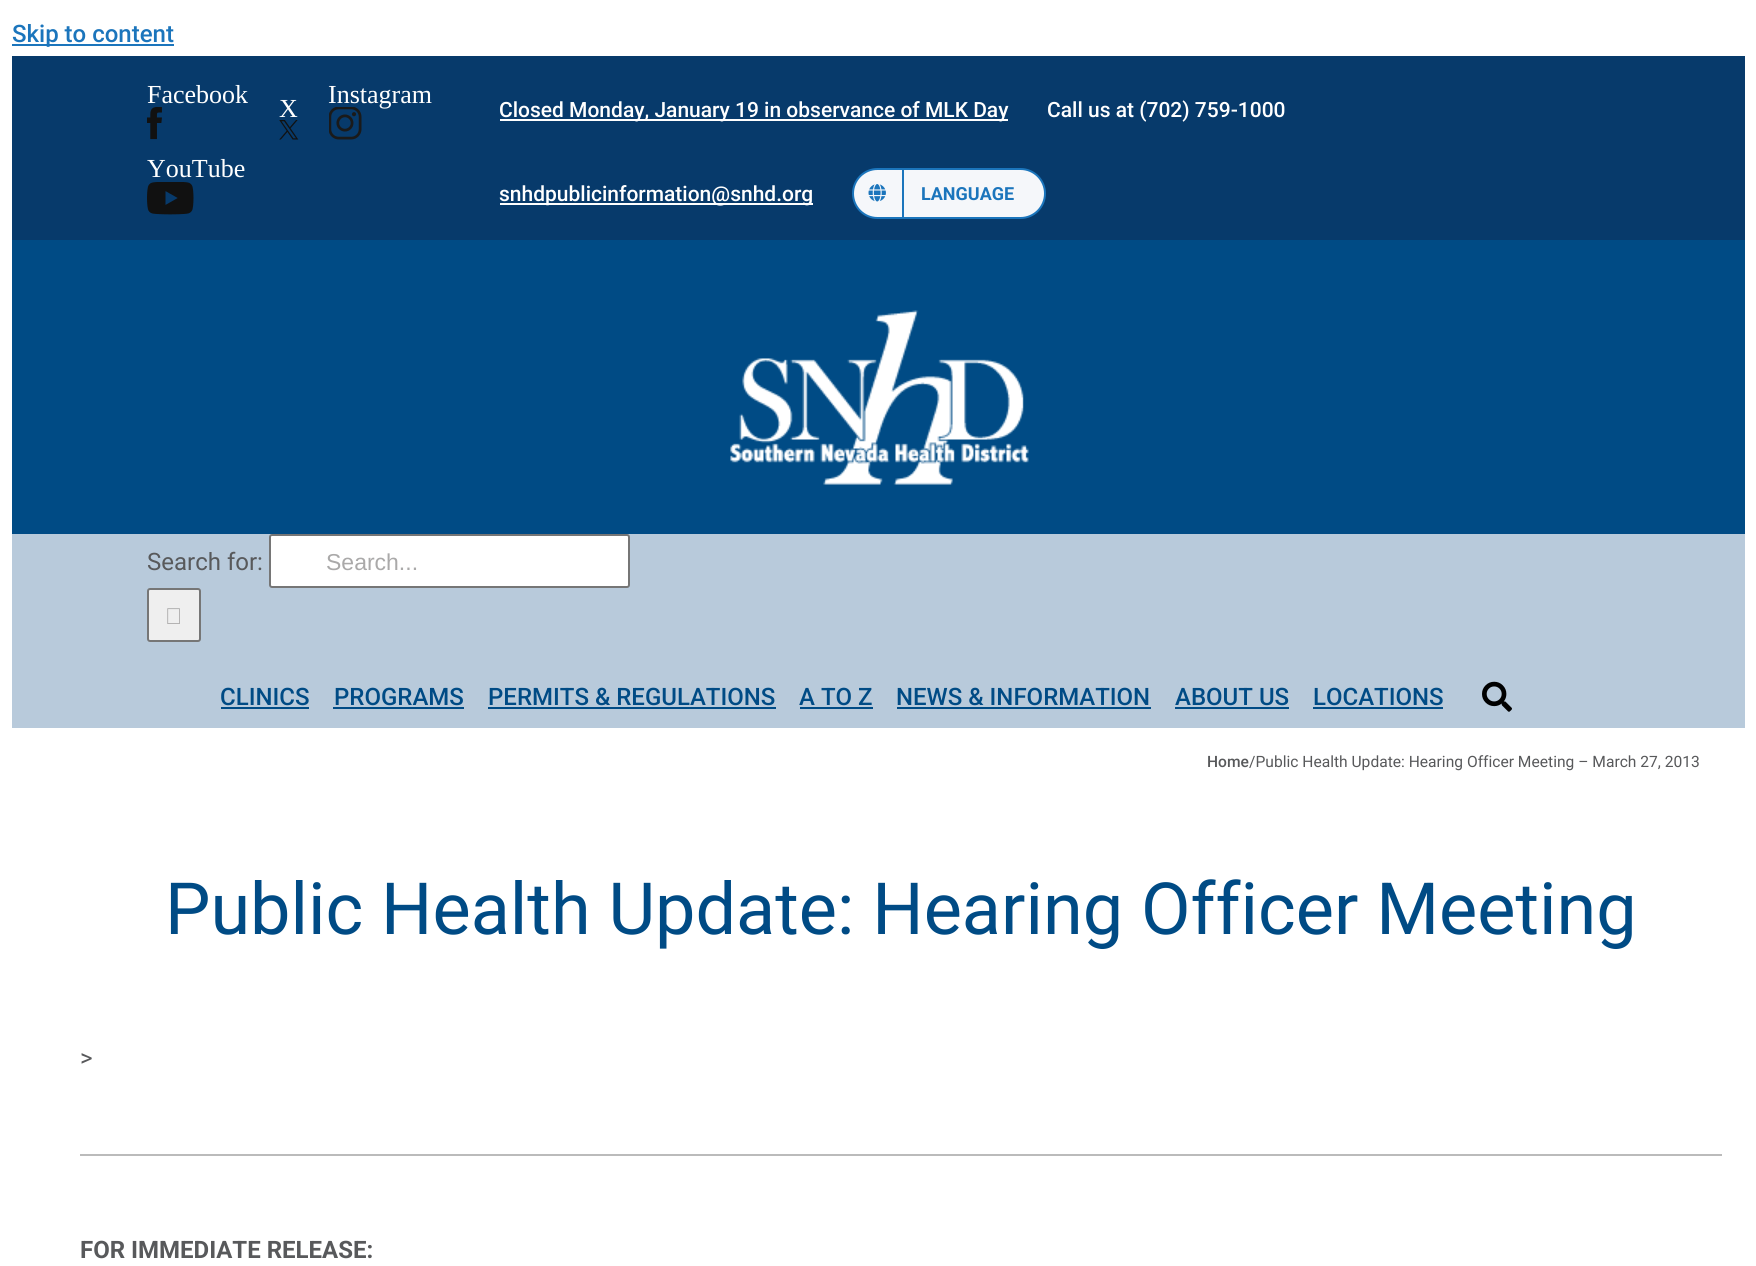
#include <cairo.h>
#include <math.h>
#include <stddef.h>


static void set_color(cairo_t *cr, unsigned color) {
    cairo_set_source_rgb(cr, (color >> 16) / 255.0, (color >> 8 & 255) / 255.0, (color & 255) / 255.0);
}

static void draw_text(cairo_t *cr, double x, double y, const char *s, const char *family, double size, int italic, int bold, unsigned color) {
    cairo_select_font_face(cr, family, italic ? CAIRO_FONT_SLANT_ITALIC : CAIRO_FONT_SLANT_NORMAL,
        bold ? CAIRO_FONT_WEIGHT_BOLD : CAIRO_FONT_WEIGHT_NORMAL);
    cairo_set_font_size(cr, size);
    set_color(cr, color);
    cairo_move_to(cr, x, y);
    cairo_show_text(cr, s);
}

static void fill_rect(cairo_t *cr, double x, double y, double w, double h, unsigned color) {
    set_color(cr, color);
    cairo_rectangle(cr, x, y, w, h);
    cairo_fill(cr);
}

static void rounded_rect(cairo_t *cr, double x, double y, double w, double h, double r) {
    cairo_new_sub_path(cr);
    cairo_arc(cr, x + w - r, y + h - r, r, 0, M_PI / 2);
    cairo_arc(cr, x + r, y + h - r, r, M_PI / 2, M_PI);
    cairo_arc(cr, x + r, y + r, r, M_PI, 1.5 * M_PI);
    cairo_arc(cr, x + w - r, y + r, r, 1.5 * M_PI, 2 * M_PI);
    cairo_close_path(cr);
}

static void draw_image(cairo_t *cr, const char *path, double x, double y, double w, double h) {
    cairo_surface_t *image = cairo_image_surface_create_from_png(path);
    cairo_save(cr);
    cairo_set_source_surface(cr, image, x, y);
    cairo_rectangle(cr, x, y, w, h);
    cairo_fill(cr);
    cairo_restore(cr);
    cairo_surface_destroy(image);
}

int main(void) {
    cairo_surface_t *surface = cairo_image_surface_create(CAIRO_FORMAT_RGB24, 1756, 1266);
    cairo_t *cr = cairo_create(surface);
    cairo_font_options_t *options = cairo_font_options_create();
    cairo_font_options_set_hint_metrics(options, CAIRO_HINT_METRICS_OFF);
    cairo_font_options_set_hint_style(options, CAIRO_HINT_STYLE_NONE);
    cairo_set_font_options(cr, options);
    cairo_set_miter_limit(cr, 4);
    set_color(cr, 0xFFFFFF);
    cairo_paint(cr);
    fill_rect(cr, 12, 44, 162, 2, 0x1B75BC);
    draw_text(cr, 12, 42, "Skip to content", "Roboto Medium", 24, 0, 0, 0x1B75BC);
    fill_rect(cr, 12, 56, 1733, 184, 0x073A6B);
    draw_text(cr, 147, 103, "Facebook", "Liberation Serif", 26, 0, 0, 0xFFFFFF);
    draw_image(cr, "assets/img1.png", 147, 107, 15, 33);
    draw_text(cr, 279, 117, "X", "Liberation Serif", 26, 0, 0, 0xFFFFFF);
    draw_image(cr, "assets/img2.png", 279, 120, 20, 20);
    draw_text(cr, 328, 103, "Instagram", "Liberation Serif", 26, 0, 0, 0xFFFFFF);
    draw_image(cr, "assets/img3.png", 329, 107, 33, 33);
    draw_text(cr, 147, 177, "YouTube", "Liberation Serif", 26, 0, 0, 0xFFFFFF);
    draw_image(cr, "assets/img4.png", 147, 182, 47, 33);
    fill_rect(cr, 500, 119, 508, 2, 0xFFFFFF);
    draw_text(cr, 499, 117, "Closed Monday, January 19 in observance of MLK Day", "Roboto Medium", 21, 0, 0, 0xFFFFFF);
    draw_text(cr, 1047, 117, "Call us at (702) 759-1000", "Roboto Medium", 21, 0, 0, 0xFFFFFF);
    fill_rect(cr, 500, 203, 313, 2, 0xFFFFFF);
    draw_text(cr, 499, 201, "snhdpublicinformation@snhd.org", "Roboto Medium", 21, 0, 0, 0xFFFFFF);
    set_color(cr, 0xF5F7FA);
    rounded_rect(cr, 853, 169, 192, 49, 24.5);
    cairo_fill_preserve(cr);
    set_color(cr, 0x1B75BC);
    cairo_stroke(cr);
    fill_rect(cr, 902, 170, 2, 48, 0x1B75BC);
    draw_image(cr, "assets/img5.png", 868, 184, 18, 18);
    draw_text(cr, 921, 200, "LANGUAGE", "Roboto", 18, 0, 1, 0x1B75BC);
    fill_rect(cr, 12, 240, 1733, 294, 0x004B85);
    draw_image(cr, "assets/img6.png", 730, 310, 299, 175);
    fill_rect(cr, 12, 534, 1733, 194, 0xB8CADB);
    draw_text(cr, 147, 570, "Search for:", "Roboto", 24, 0, 0, 0x58595B);
    set_color(cr, 0xFFFFFF);
    rounded_rect(cr, 270, 535, 359, 52, 2);
    cairo_fill_preserve(cr);
    set_color(cr, 0x767676);
    cairo_stroke(cr);
    draw_text(cr, 326, 570, "Search...", "Liberation Sans", 23, 0, 0, 0xAAA9A9);
    set_color(cr, 0xEFEFEF);
    rounded_rect(cr, 148, 589, 52, 52, 2);
    cairo_fill_preserve(cr);
    set_color(cr, 0x767676);
    cairo_stroke(cr);
    draw_image(cr, "assets/img7.png", 167, 608, 13, 16);
    draw_text(cr, 220, 705, "CLINICS", "Roboto Medium", 24, 0, 0, 0x004B85);
    fill_rect(cr, 221, 707, 88, 2, 0x004B85);
    draw_text(cr, 334, 705, "PROGRAMS", "Roboto Medium", 24, 0, 0, 0x004B85);
    fill_rect(cr, 333, 707, 131, 2, 0x004B85);
    draw_text(cr, 488, 705, "PERMITS & REGULATIONS", "Roboto Medium", 24, 0, 0, 0x004B85);
    fill_rect(cr, 488, 707, 288, 2, 0x004B85);
    draw_text(cr, 799, 705, "A TO Z", "Roboto Medium", 24, 0, 0, 0x004B85);
    fill_rect(cr, 800, 707, 73, 2, 0x004B85);
    draw_text(cr, 896, 705, "NEWS & INFORMATION", "Roboto Medium", 24, 0, 0, 0x004B85);
    fill_rect(cr, 897, 707, 254, 2, 0x004B85);
    draw_text(cr, 1175, 705, "ABOUT US", "Roboto Medium", 24, 0, 0, 0x004B85);
    fill_rect(cr, 1175, 707, 114, 2, 0x004B85);
    draw_text(cr, 1313, 705, "LOCATIONS", "Roboto Medium", 24, 0, 0, 0x004B85);
    fill_rect(cr, 1313, 707, 130, 2, 0x004B85);
    draw_image(cr, "assets/img8.png", 1482, 681, 30, 31);
    draw_text(cr, 1207, 767, "Home", "Roboto Medium", 15.6, 0, 0, 0x58595B);
    draw_text(cr, 1249, 767, "/Public Health Update: Hearing Officer Meeting – March 27, 2013", "Roboto", 15.6, 0, 0, 0x58595B);
    draw_text(cr, 165, 934, "Public Health Update: Hearing Officer Meeting", "Roboto", 72, 0, 0, 0x004B85);
    draw_text(cr, 80, 1066, ">", "Roboto", 24, 0, 0, 0x58595B);
    fill_rect(cr, 80, 1154, 1642, 2, 0xBBBBBB);
    draw_text(cr, 80, 1258, "FOR IMMEDIATE RELEASE:", "Roboto", 24, 0, 1, 0x58595B);
    cairo_surface_write_to_png(surface, "output.png");
    cairo_font_options_destroy(options);
    cairo_destroy(cr);
    cairo_surface_destroy(surface);
    return 0;
}
